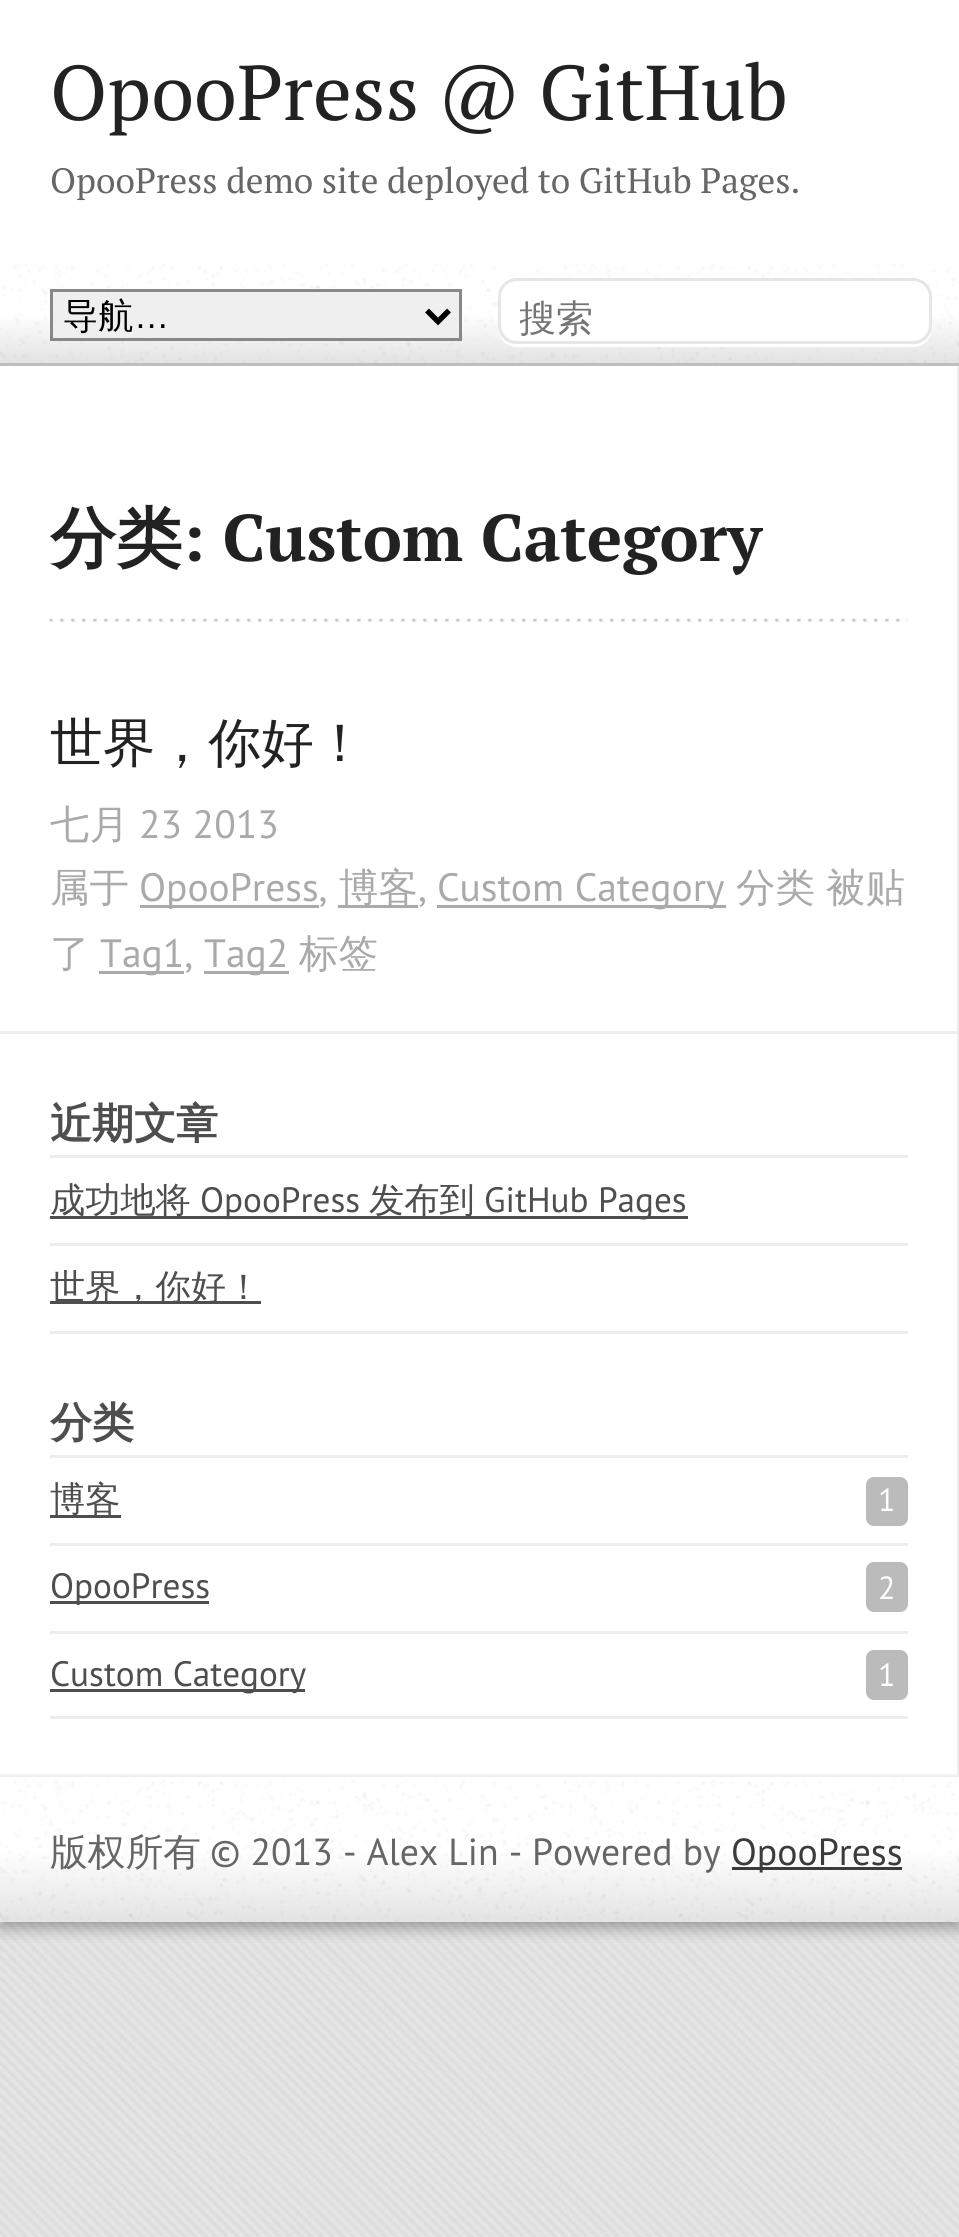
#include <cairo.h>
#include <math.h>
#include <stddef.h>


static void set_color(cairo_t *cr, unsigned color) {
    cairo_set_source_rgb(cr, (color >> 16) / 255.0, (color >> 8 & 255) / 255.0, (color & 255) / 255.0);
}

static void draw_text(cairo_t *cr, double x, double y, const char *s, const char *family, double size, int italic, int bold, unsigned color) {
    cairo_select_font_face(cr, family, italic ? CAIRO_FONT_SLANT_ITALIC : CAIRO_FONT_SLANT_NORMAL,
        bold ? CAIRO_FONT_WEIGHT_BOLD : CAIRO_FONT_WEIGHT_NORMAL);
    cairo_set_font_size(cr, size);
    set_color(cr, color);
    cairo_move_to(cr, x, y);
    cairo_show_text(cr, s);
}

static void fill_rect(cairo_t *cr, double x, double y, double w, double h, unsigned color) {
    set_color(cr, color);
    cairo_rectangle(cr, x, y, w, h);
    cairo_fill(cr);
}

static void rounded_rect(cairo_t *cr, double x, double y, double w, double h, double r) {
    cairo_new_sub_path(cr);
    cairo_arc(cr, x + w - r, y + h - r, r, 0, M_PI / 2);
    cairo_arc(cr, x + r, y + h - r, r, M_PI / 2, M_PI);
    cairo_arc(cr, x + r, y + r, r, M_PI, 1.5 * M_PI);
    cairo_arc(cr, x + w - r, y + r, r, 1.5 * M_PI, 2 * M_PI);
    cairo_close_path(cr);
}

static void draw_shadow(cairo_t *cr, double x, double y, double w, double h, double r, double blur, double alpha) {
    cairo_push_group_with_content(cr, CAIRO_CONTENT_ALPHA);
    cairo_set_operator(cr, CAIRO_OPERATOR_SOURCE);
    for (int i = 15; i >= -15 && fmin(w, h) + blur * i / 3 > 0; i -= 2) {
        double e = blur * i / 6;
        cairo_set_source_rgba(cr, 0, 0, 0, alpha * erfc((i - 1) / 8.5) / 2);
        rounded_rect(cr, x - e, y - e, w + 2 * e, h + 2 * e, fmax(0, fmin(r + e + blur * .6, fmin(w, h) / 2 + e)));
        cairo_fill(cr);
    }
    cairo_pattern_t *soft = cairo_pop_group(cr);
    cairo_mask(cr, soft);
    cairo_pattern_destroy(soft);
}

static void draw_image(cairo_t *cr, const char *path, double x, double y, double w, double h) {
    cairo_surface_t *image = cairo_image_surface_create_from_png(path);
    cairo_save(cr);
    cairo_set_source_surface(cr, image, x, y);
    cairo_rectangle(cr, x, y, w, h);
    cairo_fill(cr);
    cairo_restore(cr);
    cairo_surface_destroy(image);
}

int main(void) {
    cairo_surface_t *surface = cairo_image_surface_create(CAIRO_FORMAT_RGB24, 959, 2237);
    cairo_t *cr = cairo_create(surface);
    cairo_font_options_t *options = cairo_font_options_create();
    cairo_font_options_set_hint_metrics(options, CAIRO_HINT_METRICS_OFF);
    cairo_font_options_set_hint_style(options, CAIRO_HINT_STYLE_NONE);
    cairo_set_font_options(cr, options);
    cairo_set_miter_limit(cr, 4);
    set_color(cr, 0xE6E6E6);
    cairo_paint(cr);
    draw_image(cr, "assets/img1.png", 0, 1912, 959, 325);
    cairo_save(cr);
    cairo_rectangle(cr, 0, 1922, 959, 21);
    cairo_clip(cr);
    set_color(cr, 0x646464);
    draw_shadow(cr, 0, 6, 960, 1922, 0, 8, 0.6);
    cairo_restore(cr);
    fill_rect(cr, 0, 0, 959, 264, 0xFFFFFF);
    draw_text(cr, 50, 120, "OpooPress @ GitHub", "PT Serif", 77.5, 0, 0, 0x222222);
    draw_text(cr, 50, 193, "OpooPress demo site deployed to GitHub Pages.", "PT Serif", 35.2, 0, 0, 0x666666);
    draw_image(cr, "assets/img2.png", 0, 264, 959, 99);
    fill_rect(cr, 0, 363, 959, 3, 0xBFBFBF);
    set_color(cr, 0xEFEFEF);
    cairo_rectangle(cr, 51.5, 290.5, 409, 49);
    cairo_fill_preserve(cr);
    set_color(cr, 0x888888);
    cairo_set_line_width(cr, 3);
    cairo_stroke(cr);
    cairo_new_path(cr);
    cairo_move_to(cr, 427, 310.5);
    cairo_line_to(cr, 438, 321.5);
    cairo_line_to(cr, 449, 310.5);
    set_color(cr, 0x000000);
    cairo_set_line_width(cr, 5.5);
    cairo_stroke(cr);
    draw_text(cr, 63, 328, "导航", "WenQuanYi Zen Hei Medium", 35.2, 0, 0, 0x000000);
    draw_text(cr, 134, 328, "…", "Liberation Sans", 35.2, 0, 0, 0x000000);
    set_color(cr, 0xFFFFFF);
    cairo_new_path(cr);
    cairo_move_to(cr, 498, 328);
    cairo_curve_to(cr, 498, 339, 507, 347, 517, 347);
    cairo_line_to(cr, 913, 347);
    cairo_curve_to(cr, 923, 347, 932, 339, 932, 328);
    cairo_curve_to(cr, 931, 337, 923, 344, 914, 344);
    cairo_line_to(cr, 516, 344);
    cairo_curve_to(cr, 507, 344, 499, 337, 498, 328);
    cairo_close_path(cr);
    cairo_fill(cr);
    rounded_rect(cr, 499.5, 279.5, 431, 63, 17.5);
    cairo_fill_preserve(cr);
    set_color(cr, 0xE6E6E6);
    cairo_set_line_width(cr, 3);
    cairo_stroke(cr);
    cairo_save(cr);
    cairo_rectangle(cr, 520, 292, 390, 52);
    cairo_clip(cr);
    draw_text(cr, 519, 331, "搜索", "WenQuanYi Zen Hei Medium", 37, 0, 0, 0x757575);
    cairo_restore(cr);
    fill_rect(cr, 0, 366, 957, 1408, 0xFFFFFF);
    fill_rect(cr, 0, 1774, 959, 3, 0xF2F2F2);
    fill_rect(cr, 957, 366, 2, 1408, 0xEDEDED);
    draw_image(cr, "assets/img3.png", 49, 618, 859, 4);
    draw_text(cr, 50, 561, "分类", "WenQuanYi Zen Hei", 66, 0, 1, 0x222222);
    draw_text(cr, 182, 561, ": Custom Category", "PT Serif", 66, 0, 1, 0x222222);
    draw_text(cr, 50, 761, "世界，你好！", "WenQuanYi Zen Hei Medium", 52.75, 0, 0, 0x222222);
    draw_text(cr, 50, 838, "七月", "WenQuanYi Zen Hei Medium", 39.5, 0, 0, 0xAAAAAA);
    draw_text(cr, 139, 838, "23 2013", "PT Sans", 39.5, 0, 0, 0xAAAAAA);
    draw_text(cr, 50, 901, "属于", "WenQuanYi Zen Hei Medium", 39.5, 0, 0, 0xAAAAAA);
    fill_rect(cr, 140, 905, 179, 3, 0xAAAAAA);
    draw_text(cr, 139, 901, "OpooPress,", "PT Sans", 39.5, 0, 0, 0xAAAAAA);
    fill_rect(cr, 338, 905, 80, 3, 0xAAAAAA);
    draw_text(cr, 339, 901, "博客", "WenQuanYi Zen Hei Medium", 39.5, 0, 0, 0xAAAAAA);
    draw_text(cr, 418, 901, ",", "PT Sans", 39.5, 0, 0, 0xAAAAAA);
    fill_rect(cr, 437, 905, 289, 3, 0xAAAAAA);
    draw_text(cr, 437, 901, "Custom Category", "PT Sans", 39.5, 0, 0, 0xAAAAAA);
    draw_text(cr, 736, 901, "分类", "WenQuanYi Zen Hei Medium", 39.5, 0, 0, 0xAAAAAA);
    draw_text(cr, 826, 901, "被贴", "WenQuanYi Zen Hei Medium", 39.5, 0, 0, 0xAAAAAA);
    draw_text(cr, 50, 967, "了", "WenQuanYi Zen Hei Medium", 39.5, 0, 0, 0xAAAAAA);
    fill_rect(cr, 99, 971, 85, 3, 0xAAAAAA);
    draw_text(cr, 100, 967, "Tag1,", "PT Sans", 39.5, 0, 0, 0xAAAAAA);
    fill_rect(cr, 204, 971, 85, 3, 0xAAAAAA);
    draw_text(cr, 204, 967, "Tag2", "PT Sans", 39.5, 0, 0, 0xAAAAAA);
    draw_text(cr, 299, 967, "标签", "WenQuanYi Zen Hei Medium", 39.5, 0, 0, 0xAAAAAA);
    fill_rect(cr, 0, 1031, 957, 3, 0xEDEDED);
    fill_rect(cr, 50, 1155, 858, 3, 0xEDEDED);
    draw_text(cr, 50, 1138, "近期文章", "WenQuanYi Zen Hei", 42, 0, 1, 0x4E4E4E);
    fill_rect(cr, 50, 1243, 858, 3, 0xEDEDED);
    fill_rect(cr, 50, 1216, 638, 3, 0x4E4E4E);
    draw_text(cr, 50, 1212, "成功地将", "WenQuanYi Zen Hei Medium", 35.2, 0, 0, 0x4E4E4E);
    draw_text(cr, 200, 1212, "OpooPress", "PT Sans", 35.2, 0, 0, 0x4E4E4E);
    draw_text(cr, 369, 1212, "发布到", "WenQuanYi Zen Hei Medium", 35.2, 0, 0, 0x4E4E4E);
    draw_text(cr, 484, 1212, "GitHub Pages", "PT Sans", 35.2, 0, 0, 0x4E4E4E);
    fill_rect(cr, 50, 1331, 858, 3, 0xEDEDED);
    fill_rect(cr, 50, 1301, 211, 3, 0x4E4E4E);
    draw_text(cr, 50, 1299, "世界，你好！", "WenQuanYi Zen Hei Medium", 35.2, 0, 0, 0x4E4E4E);
    fill_rect(cr, 50, 1455, 858, 3, 0xEDEDED);
    draw_text(cr, 50, 1437, "分类", "WenQuanYi Zen Hei", 42, 0, 1, 0x4E4E4E);
    fill_rect(cr, 50, 1543, 858, 3, 0xEDEDED);
    fill_rect(cr, 50, 1515, 71, 3, 0x4E4E4E);
    draw_text(cr, 50, 1511, "博客", "WenQuanYi Zen Hei Medium", 35.2, 0, 0, 0x4E4E4E);
    set_color(cr, 0xBBBBBB);
    rounded_rect(cr, 866, 1477, 42, 49, 8);
    cairo_fill(cr);
    draw_text(cr, 878, 1511, "1", "PT Sans", 32, 0, 0, 0xFFFFFF);
    fill_rect(cr, 50, 1631, 858, 3, 0xEDEDED);
    fill_rect(cr, 50, 1601, 159, 3, 0x4E4E4E);
    draw_text(cr, 50, 1598, "OpooPress", "PT Sans", 35.2, 0, 0, 0x4E4E4E);
    set_color(cr, 0xBBBBBB);
    rounded_rect(cr, 866, 1562, 42, 50, 8);
    cairo_fill(cr);
    draw_text(cr, 878, 1599, "2", "PT Sans", 32, 0, 0, 0xFFFFFF);
    fill_rect(cr, 50, 1716, 858, 3, 0xEDEDED);
    fill_rect(cr, 50, 1689, 255, 3, 0x4E4E4E);
    draw_text(cr, 50, 1686, "Custom Category", "PT Sans", 35.2, 0, 0, 0x4E4E4E);
    set_color(cr, 0xBBBBBB);
    rounded_rect(cr, 866, 1650, 42, 50, 8);
    cairo_fill(cr);
    draw_text(cr, 878, 1686, "1", "PT Sans", 32, 0, 0, 0xFFFFFF);
    draw_image(cr, "assets/img4.png", 0, 1776, 959, 146);
    fill_rect(cr, 0, 1777, 959, 3, 0xFFFFFF);
    draw_text(cr, 50, 1865, "版权所有", "WenQuanYi Zen Hei Medium", 37.75, 0, 0, 0x666666);
    draw_text(cr, 210, 1865, "© 2013 - Alex Lin -", "PT Sans", 37.75, 0, 0, 0x666666);
    draw_text(cr, 532, 1865, "Powered by", "PT Sans", 37.75, 0, 0, 0x666666);
    fill_rect(cr, 732, 1867, 170, 3, 0x3B3B3B);
    draw_text(cr, 731, 1865, "OpooPress", "PT Sans", 37.75, 0, 0, 0x3B3B3B);
    cairo_surface_write_to_png(surface, "output.png");
    cairo_font_options_destroy(options);
    cairo_destroy(cr);
    cairo_surface_destroy(surface);
    return 0;
}
